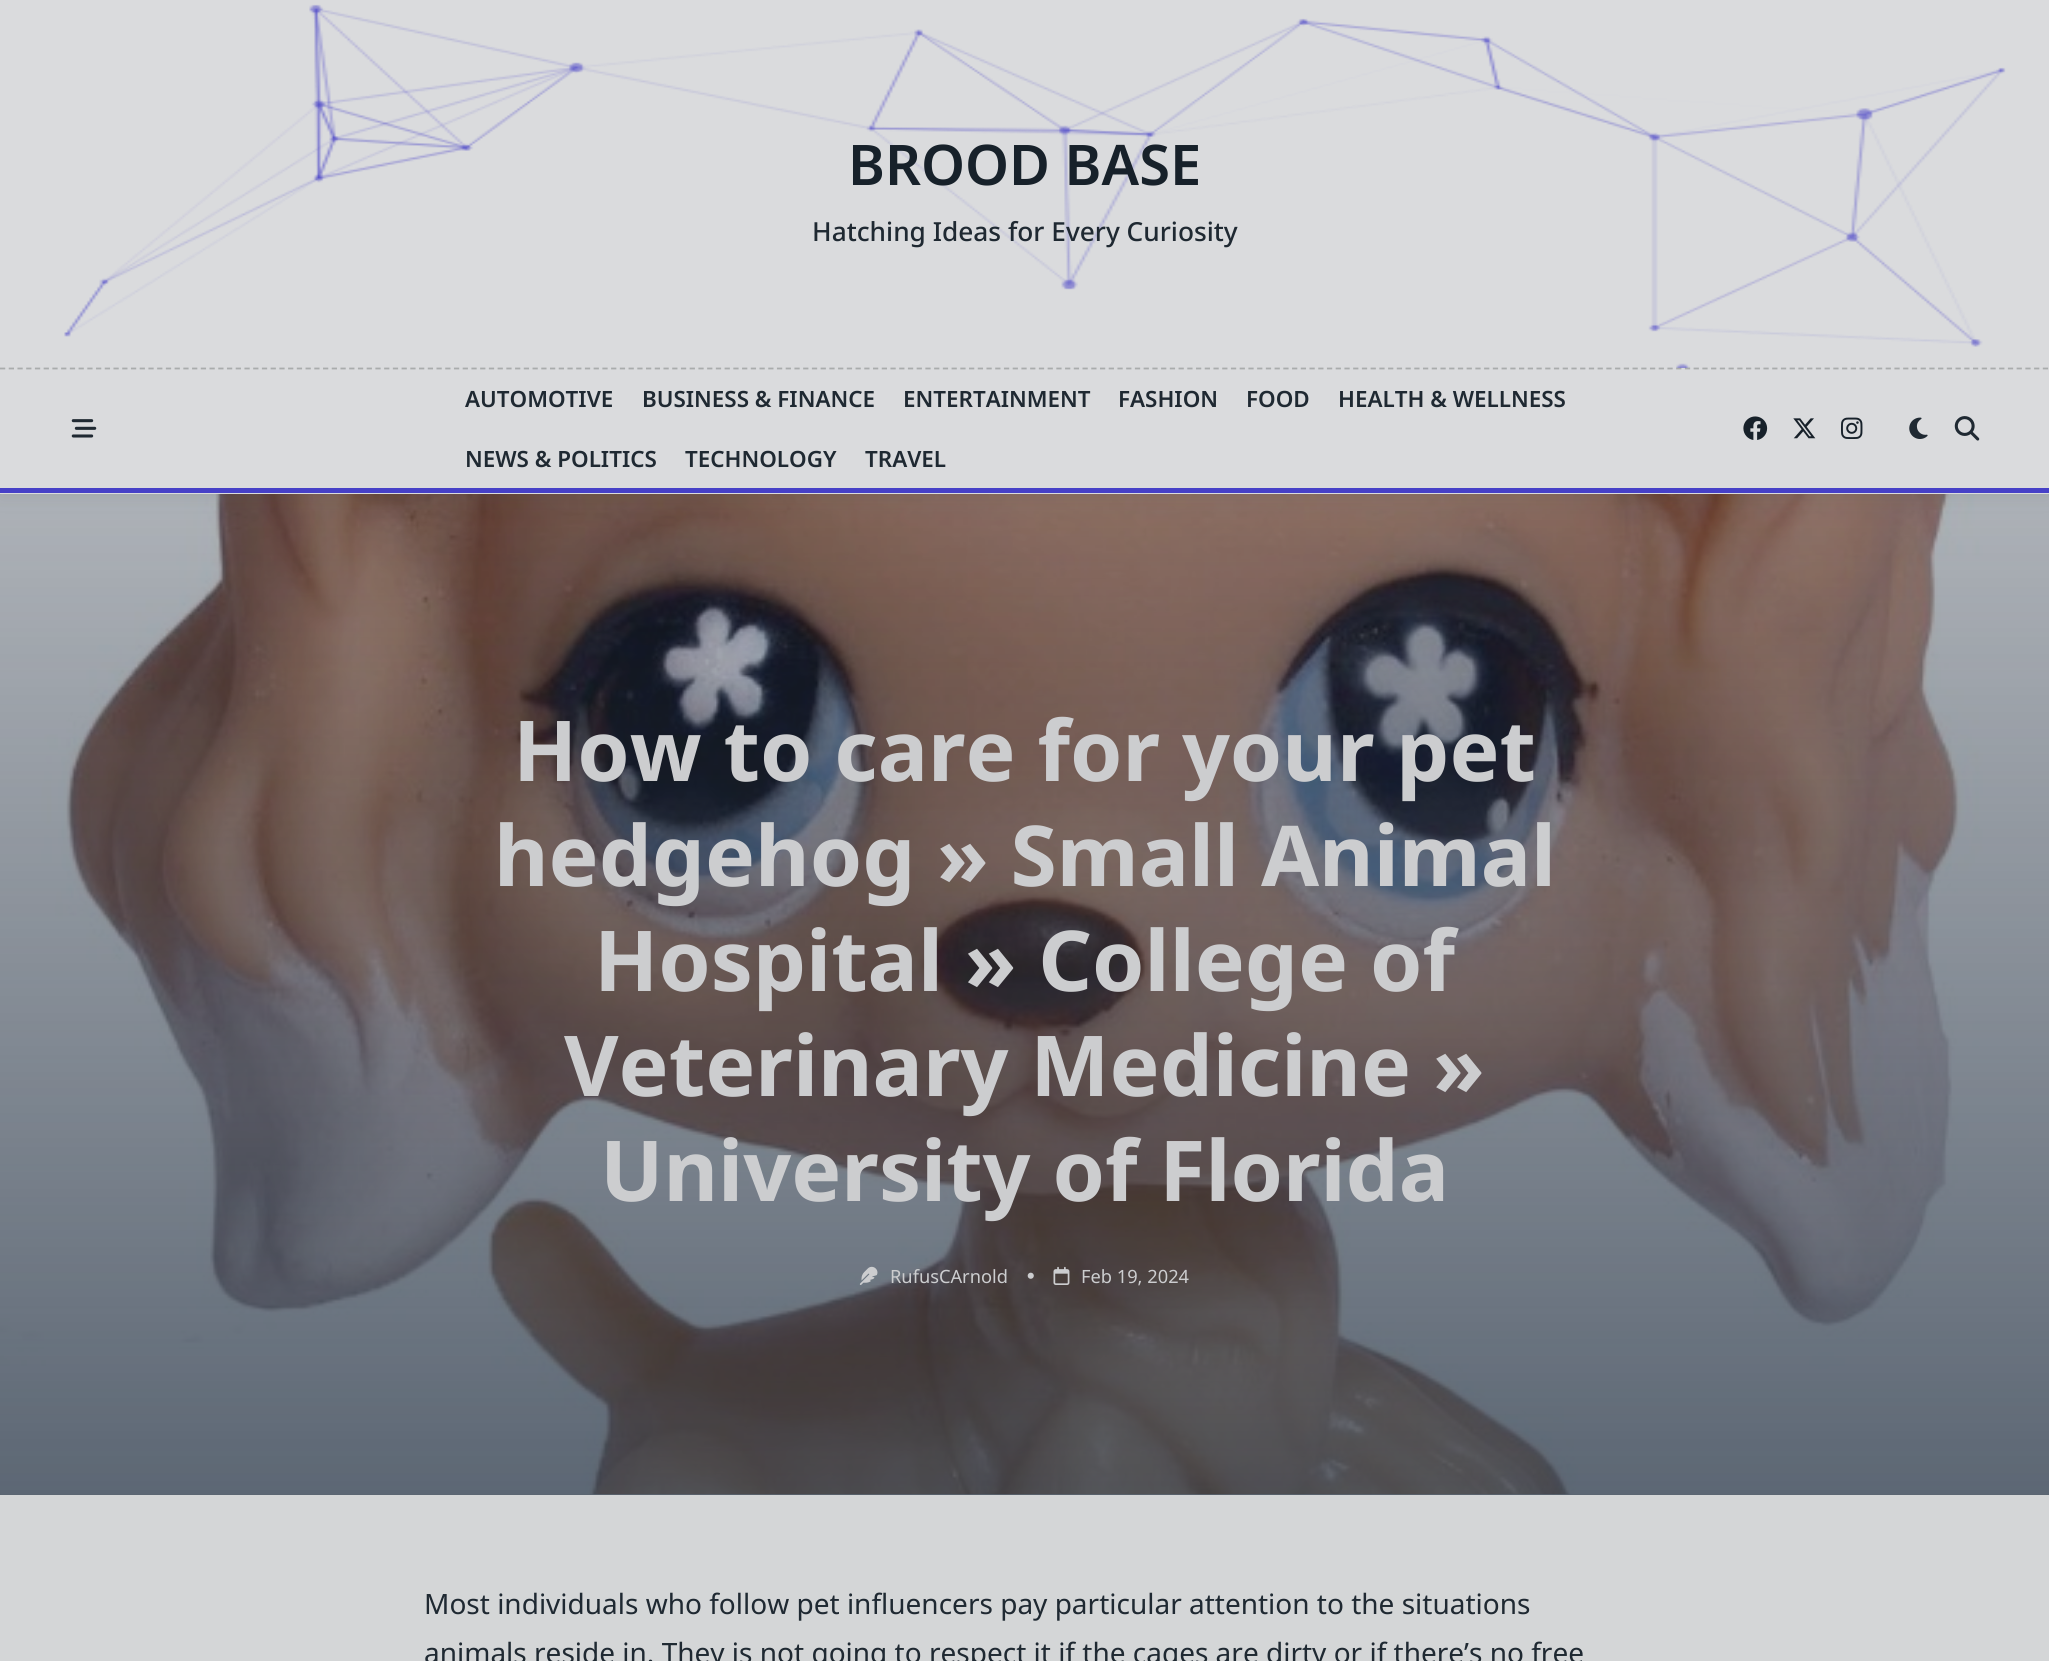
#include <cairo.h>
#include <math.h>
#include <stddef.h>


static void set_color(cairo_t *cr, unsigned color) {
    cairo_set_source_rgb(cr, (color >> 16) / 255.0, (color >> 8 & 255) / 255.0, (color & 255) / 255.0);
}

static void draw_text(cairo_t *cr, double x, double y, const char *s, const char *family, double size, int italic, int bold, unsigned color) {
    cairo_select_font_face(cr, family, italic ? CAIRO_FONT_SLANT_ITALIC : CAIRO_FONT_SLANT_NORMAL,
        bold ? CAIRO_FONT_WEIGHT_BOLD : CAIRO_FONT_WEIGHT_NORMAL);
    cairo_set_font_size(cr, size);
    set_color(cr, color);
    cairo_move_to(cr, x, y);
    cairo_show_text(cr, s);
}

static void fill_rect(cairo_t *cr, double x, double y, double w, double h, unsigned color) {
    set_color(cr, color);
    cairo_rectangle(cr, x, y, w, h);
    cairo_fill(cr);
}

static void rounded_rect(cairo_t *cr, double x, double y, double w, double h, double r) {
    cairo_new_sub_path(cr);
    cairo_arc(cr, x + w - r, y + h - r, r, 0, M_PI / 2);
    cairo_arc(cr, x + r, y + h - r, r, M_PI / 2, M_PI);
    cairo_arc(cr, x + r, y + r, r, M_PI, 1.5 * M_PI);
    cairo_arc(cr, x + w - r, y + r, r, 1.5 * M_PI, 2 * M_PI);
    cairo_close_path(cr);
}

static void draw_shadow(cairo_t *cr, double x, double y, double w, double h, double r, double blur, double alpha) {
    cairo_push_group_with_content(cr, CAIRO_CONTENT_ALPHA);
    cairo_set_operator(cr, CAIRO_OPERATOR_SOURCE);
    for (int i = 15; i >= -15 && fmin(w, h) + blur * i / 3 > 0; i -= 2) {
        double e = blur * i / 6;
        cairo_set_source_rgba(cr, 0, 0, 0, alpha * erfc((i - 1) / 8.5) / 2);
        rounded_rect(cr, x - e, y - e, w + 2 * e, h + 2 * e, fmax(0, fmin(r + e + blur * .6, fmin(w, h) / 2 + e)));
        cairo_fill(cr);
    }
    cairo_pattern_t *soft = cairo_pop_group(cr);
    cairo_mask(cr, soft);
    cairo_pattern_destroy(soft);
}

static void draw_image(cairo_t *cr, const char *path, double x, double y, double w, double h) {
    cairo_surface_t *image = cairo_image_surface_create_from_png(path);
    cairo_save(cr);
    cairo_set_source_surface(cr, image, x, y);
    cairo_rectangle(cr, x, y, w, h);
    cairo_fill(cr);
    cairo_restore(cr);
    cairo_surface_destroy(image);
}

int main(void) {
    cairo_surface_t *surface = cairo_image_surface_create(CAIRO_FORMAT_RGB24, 2049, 1661);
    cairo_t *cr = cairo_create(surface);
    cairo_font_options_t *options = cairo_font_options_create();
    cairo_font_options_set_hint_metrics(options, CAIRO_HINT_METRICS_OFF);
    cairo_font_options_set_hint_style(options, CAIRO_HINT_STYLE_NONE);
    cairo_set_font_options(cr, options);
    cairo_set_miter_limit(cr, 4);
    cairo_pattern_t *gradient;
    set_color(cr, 0xD4D6D7);
    cairo_paint(cr);
    draw_image(cr, "assets/img8.png", 0, 494, 2049, 1001);
    gradient = cairo_pattern_create_linear(1025, 493, 1025, 1495);
    cairo_pattern_add_color_stop_rgba(gradient, 0, 0.18, 0.235, 0.302, 0.26);
    cairo_pattern_add_color_stop_rgba(gradient, 1, 0.18, 0.235, 0.302, 0.73);
    cairo_set_source(cr, gradient);
    cairo_pattern_destroy(gradient);
    cairo_rectangle(cr, 0, 494, 2049, 1001);
    cairo_fill(cr);
    set_color(cr, 0x29394A);
    draw_shadow(cr, 0, 373, 2049, 124, 0, 9, 0.1);
    fill_rect(cr, 0, 0, 2049, 494, 0xDADBDD);
    cairo_new_path(cr);
    cairo_move_to(cr, 0, 368.5);
    cairo_line_to(cr, 2049, 368.5);
    set_color(cr, 0xA9ACAC);
    cairo_set_line_width(cr, 1.8);
    cairo_set_dash(cr, (double[]){5.25, 3.48}, 2, 0);
    cairo_stroke(cr);
    draw_image(cr, "assets/img1.png", 64, 4, 1942, 364);
    draw_text(cr, 848, 185, "BROOD BASE", "Noto Sans SemiBold", 56, 0, 0, 0x17212A);
    draw_text(cr, 812, 241, "Hatching Ideas for Every Curiosity", "Noto Sans Medium", 26.25, 0, 0, 0x1F2932);
    fill_rect(cr, 0, 488, 2049, 5, 0x4640C7);
    draw_image(cr, "assets/img2.png", 71, 419, 26, 19);
    draw_text(cr, 465, 407, "AUTOMOTIVE", "Noto Sans SemiBold", 22.4, 0, 0, 0x1F2932);
    draw_text(cr, 642, 407, "BUSINESS & FINANCE", "Noto Sans SemiBold", 22.4, 0, 0, 0x1F2932);
    draw_text(cr, 903, 407, "ENTERTAINMENT", "Noto Sans SemiBold", 22.4, 0, 0, 0x1F2932);
    draw_text(cr, 1118, 407, "FASHION", "Noto Sans SemiBold", 22.4, 0, 0, 0x1F2932);
    draw_text(cr, 1246, 407, "FOOD", "Noto Sans SemiBold", 22.4, 0, 0, 0x1F2932);
    draw_text(cr, 1338, 407, "HEALTH & WELLNESS", "Noto Sans SemiBold", 22.4, 0, 0, 0x1F2932);
    draw_text(cr, 465, 467, "NEWS & POLITICS", "Noto Sans SemiBold", 22.4, 0, 0, 0x1F2932);
    draw_text(cr, 685, 467, "TECHNOLOGY", "Noto Sans SemiBold", 22.4, 0, 0, 0x1F2932);
    draw_text(cr, 865, 467, "TRAVEL", "Noto Sans SemiBold", 22.4, 0, 0, 0x1F2932);
    draw_image(cr, "assets/img3.png", 1743, 416, 25, 24);
    draw_image(cr, "assets/img4.png", 1793, 418, 23, 21);
    draw_image(cr, "assets/img5.png", 1841, 417, 22, 22);
    draw_image(cr, "assets/img6.png", 1909, 417, 19, 22);
    draw_image(cr, "assets/img7.png", 1954, 416, 26, 25);
    draw_text(cr, 513, 781, "How to care for your pet", "Noto Sans", 84, 0, 1, 0xCCCDCF);
    draw_text(cr, 494, 886, "hedgehog » Small Animal", "Noto Sans", 84, 0, 1, 0xCCCDCF);
    draw_text(cr, 594, 991, "Hospital » College of", "Noto Sans", 84, 0, 1, 0xCCCDCF);
    draw_text(cr, 564, 1096, "Veterinary Medicine »", "Noto Sans", 84, 0, 1, 0xCCCDCF);
    draw_text(cr, 600, 1201, "University of Florida", "Noto Sans", 84, 0, 1, 0xCCCDCF);
    draw_image(cr, "assets/img9.png", 859, 1266, 19, 19);
    draw_text(cr, 890, 1283, "RufusCArnold", "Noto Sans", 18.25, 0, 0, 0xCCCDCF);
    draw_image(cr, "assets/img10.png", 1027, 1272, 7, 7);
    draw_image(cr, "assets/img11.png", 1053, 1266, 17, 19);
    draw_text(cr, 1081, 1283, "Feb 19, 2024", "Noto Sans", 18.25, 0, 0, 0xCCCDCF);
    draw_text(cr, 424, 1614, "Most individuals who follow pet influencers pay particular attention to the situations", "Noto Sans", 28, 0, 0, 0x1F2932);
    draw_text(cr, 424, 1663, "animals reside in. They is not going to respect it if the cages are dirty or if there’s no free", "Noto Sans", 28, 0, 0, 0x1F2932);
    cairo_surface_write_to_png(surface, "output.png");
    cairo_font_options_destroy(options);
    cairo_destroy(cr);
    cairo_surface_destroy(surface);
    return 0;
}
